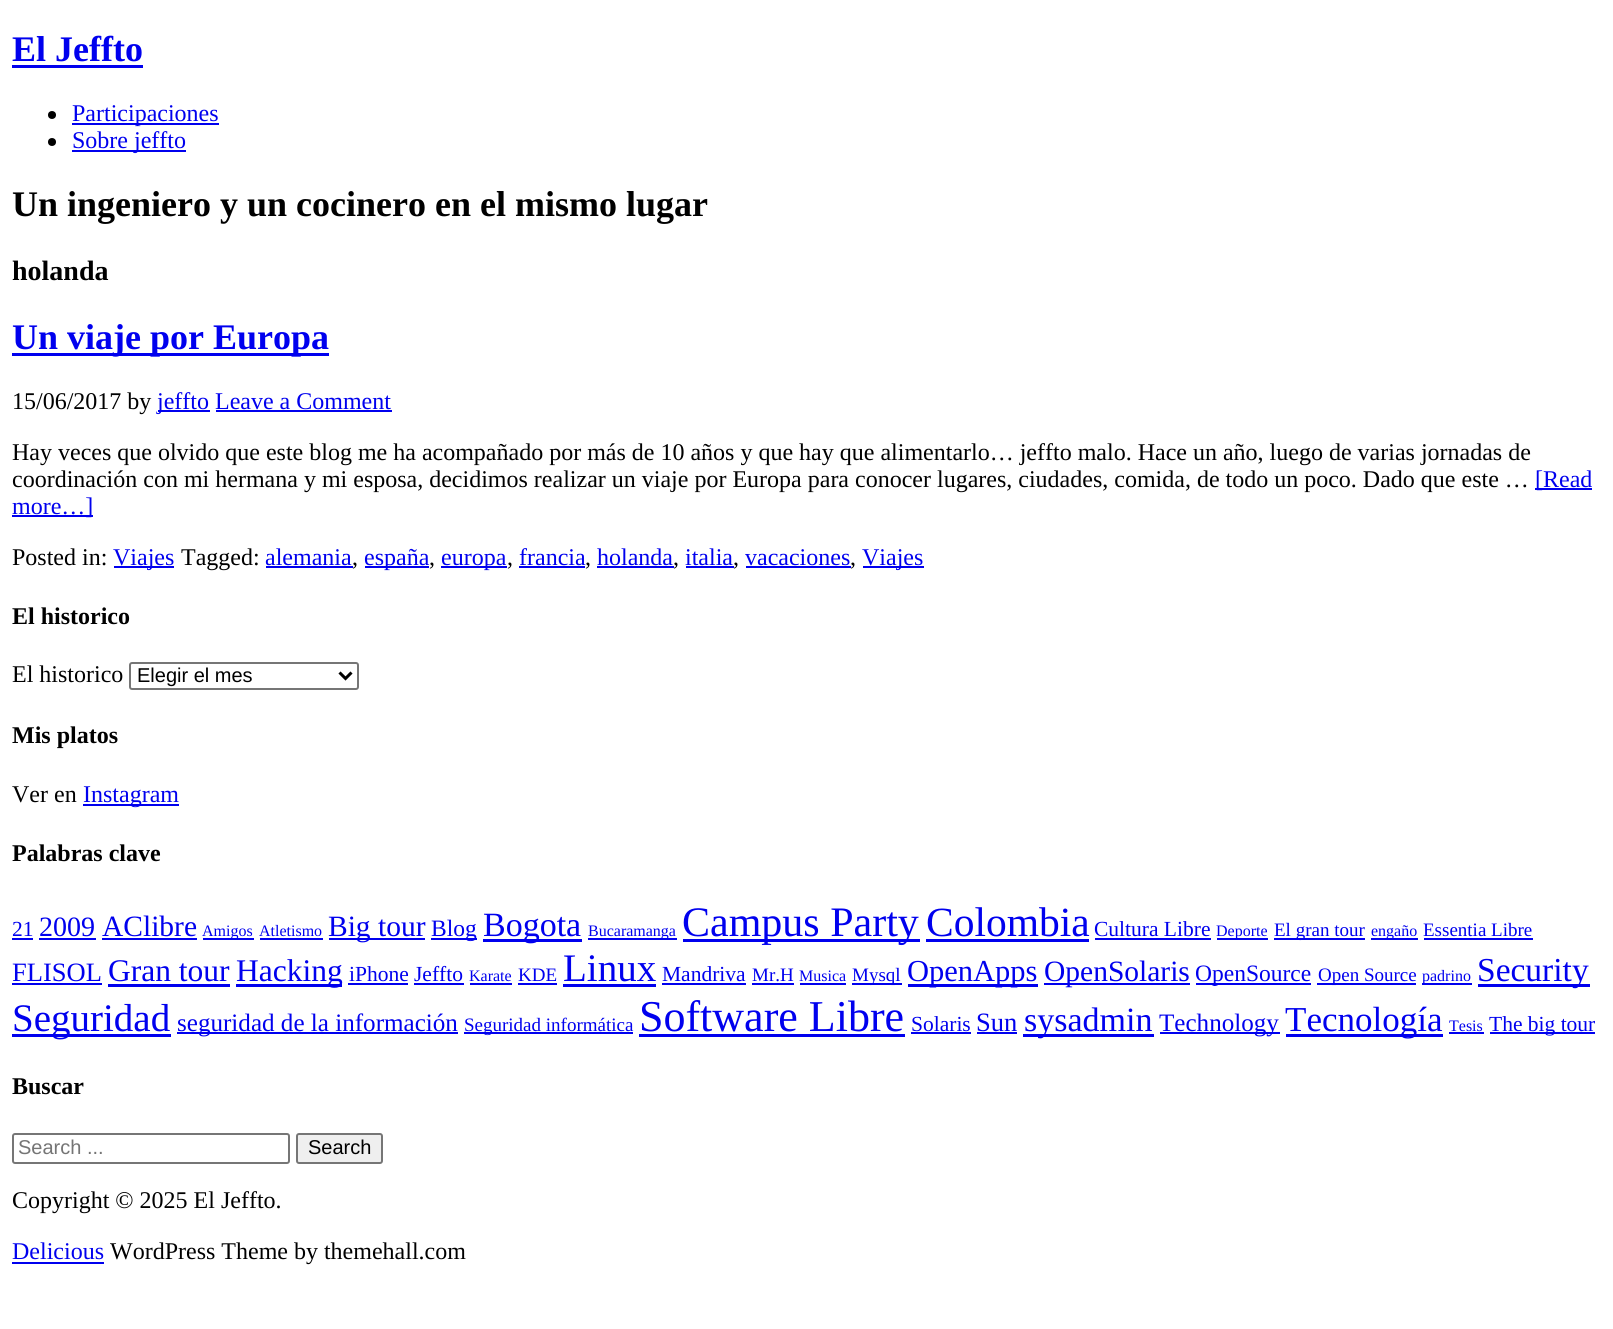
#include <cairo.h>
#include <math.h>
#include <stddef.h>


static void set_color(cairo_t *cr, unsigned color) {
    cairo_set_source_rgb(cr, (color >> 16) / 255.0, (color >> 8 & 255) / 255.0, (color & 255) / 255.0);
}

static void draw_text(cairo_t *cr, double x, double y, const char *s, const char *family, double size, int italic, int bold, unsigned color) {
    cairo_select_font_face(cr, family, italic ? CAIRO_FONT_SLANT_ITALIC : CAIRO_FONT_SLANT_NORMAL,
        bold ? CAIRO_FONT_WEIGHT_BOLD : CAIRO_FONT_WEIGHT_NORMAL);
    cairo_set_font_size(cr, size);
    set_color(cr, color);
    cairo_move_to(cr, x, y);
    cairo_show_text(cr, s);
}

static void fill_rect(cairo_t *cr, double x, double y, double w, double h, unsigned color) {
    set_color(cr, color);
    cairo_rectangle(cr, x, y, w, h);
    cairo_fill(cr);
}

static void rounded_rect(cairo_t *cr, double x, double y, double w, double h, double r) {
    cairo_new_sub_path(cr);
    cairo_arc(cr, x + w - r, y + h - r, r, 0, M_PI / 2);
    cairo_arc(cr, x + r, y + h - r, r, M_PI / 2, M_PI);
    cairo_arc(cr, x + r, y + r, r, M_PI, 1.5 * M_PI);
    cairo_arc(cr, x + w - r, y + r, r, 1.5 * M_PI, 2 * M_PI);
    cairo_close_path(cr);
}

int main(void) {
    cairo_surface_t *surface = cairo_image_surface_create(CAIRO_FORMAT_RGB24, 1613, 1329);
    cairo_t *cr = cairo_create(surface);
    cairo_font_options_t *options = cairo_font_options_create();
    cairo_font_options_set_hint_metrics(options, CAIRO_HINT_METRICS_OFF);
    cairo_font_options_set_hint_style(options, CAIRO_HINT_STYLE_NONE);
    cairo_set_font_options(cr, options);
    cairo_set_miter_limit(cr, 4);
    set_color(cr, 0xFFFFFF);
    cairo_paint(cr);
    draw_text(cr, 12, 61, "El Jeffto", "Liberation Serif", 36, 0, 1, 0x0000EE);
    fill_rect(cr, 12, 65, 131, 3, 0x0000EE);
    set_color(cr, 0x000000);
    cairo_new_path(cr);
    cairo_arc(cr, 52, 115, 4, 0, 2 * M_PI);
    cairo_fill(cr);
    fill_rect(cr, 72, 123, 147, 2, 0x0000EE);
    draw_text(cr, 72, 121, "Participaciones", "Liberation Serif", 24, 0, 0, 0x0000EE);
    set_color(cr, 0x000000);
    cairo_new_path(cr);
    cairo_arc(cr, 52, 142, 4, 0, 2 * M_PI);
    cairo_fill(cr);
    fill_rect(cr, 72, 150, 114, 2, 0x0000EE);
    draw_text(cr, 72, 148, "Sobre jeffto", "Liberation Serif", 24, 0, 0, 0x0000EE);
    draw_text(cr, 12, 216, "Un ingeniero y un cocinero en el mismo lugar", "Liberation Serif", 36, 0, 1, 0x000000);
    draw_text(cr, 12, 280, "holanda", "Liberation Serif", 28, 0, 1, 0x000000);
    fill_rect(cr, 12, 353, 317, 3, 0x0000EE);
    draw_text(cr, 12, 349, "Un viaje por Europa", "Liberation Serif", 36, 0, 1, 0x0000EE);
    draw_text(cr, 12, 409, "15/06/2017 by", "Liberation Serif", 24, 0, 0, 0x000000);
    fill_rect(cr, 158, 410, 52, 2, 0x0000EE);
    draw_text(cr, 157, 409, "jeffto Leave a Comment", "Liberation Serif", 24, 0, 0, 0x0000EE);
    fill_rect(cr, 216, 410, 176, 2, 0x0000EE);
    draw_text(cr, 12, 460, "Hay veces que olvido que este blog me ha acompañado por más de 10 años y que hay que alimentarlo… jeffto malo. Hace un año, luego de varias jornadas de", "Liberation Serif", 24, 0, 0, 0x000000);
    draw_text(cr, 12, 487, "coordinación con mi hermana y mi esposa, decidimos realizar un viaje por Europa para conocer lugares, ciudades, comida, de todo un poco. Dado que este …", "Liberation Serif", 24, 0, 0, 0x000000);
    fill_rect(cr, 1535, 488, 57, 2, 0x0000EE);
    draw_text(cr, 1535, 487, "[Read", "Liberation Serif", 24, 0, 0, 0x0000EE);
    fill_rect(cr, 12, 515, 81, 2, 0x0000EE);
    draw_text(cr, 12, 514, "more…]", "Liberation Serif", 24, 0, 0, 0x0000EE);
    draw_text(cr, 12, 565, "Posted in:", "Liberation Serif", 24, 0, 0, 0x000000);
    fill_rect(cr, 114, 566, 60, 2, 0x0000EE);
    draw_text(cr, 113, 565, "Viajes", "Liberation Serif", 24, 0, 0, 0x0000EE);
    draw_text(cr, 181, 565, "Tagged:", "Liberation Serif", 24, 0, 0, 0x000000);
    draw_text(cr, 265, 565, "alemania", "Liberation Serif", 24, 0, 0, 0x0000EE);
    fill_rect(cr, 266, 566, 87, 2, 0x0000EE);
    draw_text(cr, 352, 565, ",", "Liberation Serif", 24, 0, 0, 0x000000);
    fill_rect(cr, 365, 566, 64, 2, 0x0000EE);
    draw_text(cr, 364, 565, "españa", "Liberation Serif", 24, 0, 0, 0x0000EE);
    draw_text(cr, 429, 565, ",", "Liberation Serif", 24, 0, 0, 0x000000);
    fill_rect(cr, 441, 566, 66, 2, 0x0000EE);
    draw_text(cr, 441, 565, "europa", "Liberation Serif", 24, 0, 0, 0x0000EE);
    draw_text(cr, 507, 565, ",", "Liberation Serif", 24, 0, 0, 0x000000);
    draw_text(cr, 519, 565, "francia", "Liberation Serif", 24, 0, 0, 0x0000EE);
    draw_text(cr, 585, 565, ",", "Liberation Serif", 24, 0, 0, 0x000000);
    fill_rect(cr, 519, 566, 66, 2, 0x0000EE);
    draw_text(cr, 597, 565, "holanda", "Liberation Serif", 24, 0, 0, 0x0000EE);
    draw_text(cr, 673, 565, ",", "Liberation Serif", 24, 0, 0, 0x000000);
    fill_rect(cr, 597, 566, 77, 2, 0x0000EE);
    draw_text(cr, 685, 565, "italia", "Liberation Serif", 24, 0, 0, 0x0000EE);
    fill_rect(cr, 686, 566, 48, 2, 0x0000EE);
    draw_text(cr, 733, 565, ",", "Liberation Serif", 24, 0, 0, 0x000000);
    draw_text(cr, 745, 565, "vacaciones", "Liberation Serif", 24, 0, 0, 0x0000EE);
    draw_text(cr, 850, 565, ",", "Liberation Serif", 24, 0, 0, 0x000000);
    fill_rect(cr, 746, 566, 105, 2, 0x0000EE);
    fill_rect(cr, 863, 566, 61, 2, 0x0000EE);
    draw_text(cr, 862, 565, "Viajes", "Liberation Serif", 24, 0, 0, 0x0000EE);
    draw_text(cr, 12, 624, "El historico", "Liberation Serif", 24, 0, 1, 0x000000);
    draw_text(cr, 12, 682, "El historico", "Liberation Serif", 24, 0, 0, 0x000000);
    rounded_rect(cr, 130, 663, 228, 26, 2);
    set_color(cr, 0x767676);
    cairo_stroke(cr);
    cairo_new_path(cr);
    cairo_move_to(cr, 339.5, 672.5);
    cairo_line_to(cr, 345.5, 678.5);
    cairo_line_to(cr, 351.5, 672.5);
    set_color(cr, 0x000000);
    cairo_set_line_width(cr, 3);
    cairo_stroke(cr);
    draw_text(cr, 137, 682, "Elegir el mes", "Liberation Sans", 20, 0, 0, 0x000000);
    draw_text(cr, 12, 743, "Mis platos", "Liberation Serif", 24, 0, 1, 0x000000);
    draw_text(cr, 12, 802, "Ver en", "Liberation Serif", 24, 0, 0, 0x000000);
    fill_rect(cr, 83, 804, 96, 2, 0x0000EE);
    draw_text(cr, 83, 802, "Instagram", "Liberation Serif", 24, 0, 0, 0x0000EE);
    draw_text(cr, 12, 861, "Palabras clave", "Liberation Serif", 24, 0, 1, 0x000000);
    draw_text(cr, 12, 936, "21", "Liberation Serif", 21.5, 0, 0, 0x0000EE);
    fill_rect(cr, 12, 938, 21, 2, 0x0000EE);
    draw_text(cr, 39, 936, "2009", "Liberation Serif", 28, 0, 0, 0x0000EE);
    fill_rect(cr, 39, 938, 57, 2, 0x0000EE);
    draw_text(cr, 102, 936, "AClibre", "Liberation Serif", 29.5, 0, 0, 0x0000EE);
    fill_rect(cr, 102, 938, 95, 2, 0x0000EE);
    fill_rect(cr, 203, 938, 51, 2, 0x0000EE);
    draw_text(cr, 202, 936, "Amigos", "Liberation Serif", 16, 0, 0, 0x0000EE);
    draw_text(cr, 259, 936, "Atletismo", "Liberation Serif", 16, 0, 0, 0x0000EE);
    fill_rect(cr, 260, 938, 63, 2, 0x0000EE);
    fill_rect(cr, 329, 938, 96, 2, 0x0000EE);
    draw_text(cr, 328, 936, "Big tour", "Liberation Serif", 29.5, 0, 0, 0x0000EE);
    fill_rect(cr, 431, 938, 46, 2, 0x0000EE);
    draw_text(cr, 431, 936, "Blog", "Liberation Serif", 23.5, 0, 0, 0x0000EE);
    fill_rect(cr, 483, 939, 99, 3, 0x0000EE);
    draw_text(cr, 483, 936, "Bogota", "Liberation Serif", 34, 0, 0, 0x0000EE);
    fill_rect(cr, 588, 938, 89, 2, 0x0000EE);
    draw_text(cr, 588, 936, "Bucaramanga", "Liberation Serif", 16, 0, 0, 0x0000EE);
    fill_rect(cr, 683, 939, 237, 3, 0x0000EE);
    draw_text(cr, 682, 936, "Campus Party", "Liberation Serif", 42, 0, 0, 0x0000EE);
    draw_text(cr, 926, 936, "Colombia", "Liberation Serif", 41.5, 0, 0, 0x0000EE);
    fill_rect(cr, 926, 939, 163, 3, 0x0000EE);
    draw_text(cr, 1094, 936, "Cultura Libre", "Liberation Serif", 21.5, 0, 0, 0x0000EE);
    fill_rect(cr, 1095, 938, 116, 2, 0x0000EE);
    fill_rect(cr, 1217, 938, 51, 2, 0x0000EE);
    draw_text(cr, 1216, 936, "Deporte", "Liberation Serif", 16, 0, 0, 0x0000EE);
    fill_rect(cr, 1274, 938, 91, 2, 0x0000EE);
    draw_text(cr, 1274, 936, "El gran tour", "Liberation Serif", 19, 0, 0, 0x0000EE);
    fill_rect(cr, 1371, 938, 47, 2, 0x0000EE);
    draw_text(cr, 1371, 936, "engaño", "Liberation Serif", 16, 0, 0, 0x0000EE);
    draw_text(cr, 1423, 936, "Essentia Libre", "Liberation Serif", 19, 0, 0, 0x0000EE);
    fill_rect(cr, 1424, 938, 109, 2, 0x0000EE);
    draw_text(cr, 12, 981, "FLISOL", "Liberation Serif", 26.5, 0, 0, 0x0000EE);
    fill_rect(cr, 12, 983, 90, 2, 0x0000EE);
    draw_text(cr, 108, 981, "Gran tour", "Liberation Serif", 31.5, 0, 0, 0x0000EE);
    fill_rect(cr, 108, 984, 122, 3, 0x0000EE);
    fill_rect(cr, 236, 984, 106, 3, 0x0000EE);
    draw_text(cr, 236, 981, "Hacking", "Liberation Serif", 31.5, 0, 0, 0x0000EE);
    draw_text(cr, 349, 981, "iPhone", "Liberation Serif", 21.5, 0, 0, 0x0000EE);
    fill_rect(cr, 348, 983, 60, 2, 0x0000EE);
    draw_text(cr, 414, 981, "Jeffto", "Liberation Serif", 21.5, 0, 0, 0x0000EE);
    fill_rect(cr, 414, 983, 50, 2, 0x0000EE);
    draw_text(cr, 469, 981, "Karate", "Liberation Serif", 16, 0, 0, 0x0000EE);
    fill_rect(cr, 470, 983, 42, 2, 0x0000EE);
    draw_text(cr, 518, 981, "KDE", "Liberation Serif", 19, 0, 0, 0x0000EE);
    fill_rect(cr, 518, 983, 39, 2, 0x0000EE);
    draw_text(cr, 563, 981, "Linux", "Liberation Serif", 39, 0, 0, 0x0000EE);
    fill_rect(cr, 563, 984, 93, 3, 0x0000EE);
    draw_text(cr, 662, 981, "Mandriva", "Liberation Serif", 21.5, 0, 0, 0x0000EE);
    fill_rect(cr, 662, 983, 84, 2, 0x0000EE);
    draw_text(cr, 752, 981, "Mr.H", "Liberation Serif", 19, 0, 0, 0x0000EE);
    fill_rect(cr, 752, 983, 42, 2, 0x0000EE);
    draw_text(cr, 799, 981, "Musica", "Liberation Serif", 16, 0, 0, 0x0000EE);
    fill_rect(cr, 800, 983, 46, 2, 0x0000EE);
    fill_rect(cr, 852, 983, 50, 2, 0x0000EE);
    draw_text(cr, 852, 981, "Mysql", "Liberation Serif", 19, 0, 0, 0x0000EE);
    fill_rect(cr, 908, 984, 130, 3, 0x0000EE);
    draw_text(cr, 907, 981, "OpenApps", "Liberation Serif", 30.5, 0, 0, 0x0000EE);
    fill_rect(cr, 1044, 983, 146, 2, 0x0000EE);
    draw_text(cr, 1044, 981, "OpenSolaris", "Liberation Serif", 29.5, 0, 0, 0x0000EE);
    fill_rect(cr, 1196, 983, 115, 2, 0x0000EE);
    draw_text(cr, 1195, 981, "OpenSource", "Liberation Serif", 23.5, 0, 0, 0x0000EE);
    fill_rect(cr, 1317, 983, 99, 2, 0x0000EE);
    draw_text(cr, 1318, 981, "Open Source", "Liberation Serif", 19, 0, 0, 0x0000EE);
    fill_rect(cr, 1422, 983, 50, 2, 0x0000EE);
    draw_text(cr, 1422, 981, "padrino", "Liberation Serif", 16, 0, 0, 0x0000EE);
    fill_rect(cr, 1478, 984, 112, 3, 0x0000EE);
    draw_text(cr, 1477, 981, "Security", "Liberation Serif", 33.5, 0, 0, 0x0000EE);
    fill_rect(cr, 12, 1034, 159, 3, 0x0000EE);
    draw_text(cr, 12, 1031, "Seguridad", "Liberation Serif", 39, 0, 0, 0x0000EE);
    fill_rect(cr, 177, 1032, 281, 2, 0x0000EE);
    draw_text(cr, 177, 1031, "seguridad de la información", "Liberation Serif", 25.1, 0, 0, 0x0000EE);
    fill_rect(cr, 464, 1032, 169, 2, 0x0000EE);
    draw_text(cr, 464, 1031, "Seguridad informática", "Liberation Serif", 19, 0, 0, 0x0000EE);
    draw_text(cr, 639, 1031, "Software Libre", "Liberation Serif", 44, 0, 0, 0x0000EE);
    fill_rect(cr, 639, 1034, 266, 3, 0x0000EE);
    draw_text(cr, 911, 1031, "Solaris", "Liberation Serif", 21.5, 0, 0, 0x0000EE);
    fill_rect(cr, 911, 1032, 60, 2, 0x0000EE);
    draw_text(cr, 976, 1031, "Sun", "Liberation Serif", 26.5, 0, 0, 0x0000EE);
    fill_rect(cr, 977, 1032, 40, 2, 0x0000EE);
    fill_rect(cr, 1023, 1034, 131, 3, 0x0000EE);
    draw_text(cr, 1024, 1031, "sysadmin", "Liberation Serif", 34, 0, 0, 0x0000EE);
    fill_rect(cr, 1160, 1032, 120, 2, 0x0000EE);
    draw_text(cr, 1159, 1031, "Technology", "Liberation Serif", 25.1, 0, 0, 0x0000EE);
    fill_rect(cr, 1286, 1034, 157, 3, 0x0000EE);
    draw_text(cr, 1285, 1031, "Tecnología", "Liberation Serif", 35, 0, 0, 0x0000EE);
    draw_text(cr, 1449, 1031, "Tesis", "Liberation Serif", 16, 0, 0, 0x0000EE);
    fill_rect(cr, 1449, 1032, 35, 2, 0x0000EE);
    fill_rect(cr, 1490, 1032, 105, 2, 0x0000EE);
    draw_text(cr, 1489, 1031, "The big tour", "Liberation Serif", 21.5, 0, 0, 0x0000EE);
    draw_text(cr, 12, 1094, "Buscar", "Liberation Serif", 24, 0, 1, 0x000000);
    rounded_rect(cr, 13, 1134, 276, 29, 2);
    set_color(cr, 0x767676);
    cairo_set_line_width(cr, 2);
    cairo_stroke(cr);
    draw_text(cr, 18, 1154, "Search ...", "Liberation Sans", 20, 0, 0, 0x757575);
    set_color(cr, 0xEFEFEF);
    rounded_rect(cr, 297, 1134, 85, 29, 2);
    cairo_fill_preserve(cr);
    set_color(cr, 0x767676);
    cairo_stroke(cr);
    draw_text(cr, 308, 1154, "Search", "Liberation Sans", 20, 0, 0, 0x000000);
    draw_text(cr, 12, 1208, "Copyright © 2025 El Jeffto.", "Liberation Serif", 24, 0, 0, 0x000000);
    draw_text(cr, 12, 1259, "Delicious", "Liberation Serif", 24, 0, 0, 0x0000EE);
    fill_rect(cr, 12, 1262, 92, 2, 0x0000EE);
    draw_text(cr, 110, 1259, "WordPress Theme by themehall.com", "Liberation Serif", 24, 0, 0, 0x000000);
    cairo_surface_write_to_png(surface, "output.png");
    cairo_font_options_destroy(options);
    cairo_destroy(cr);
    cairo_surface_destroy(surface);
    return 0;
}
